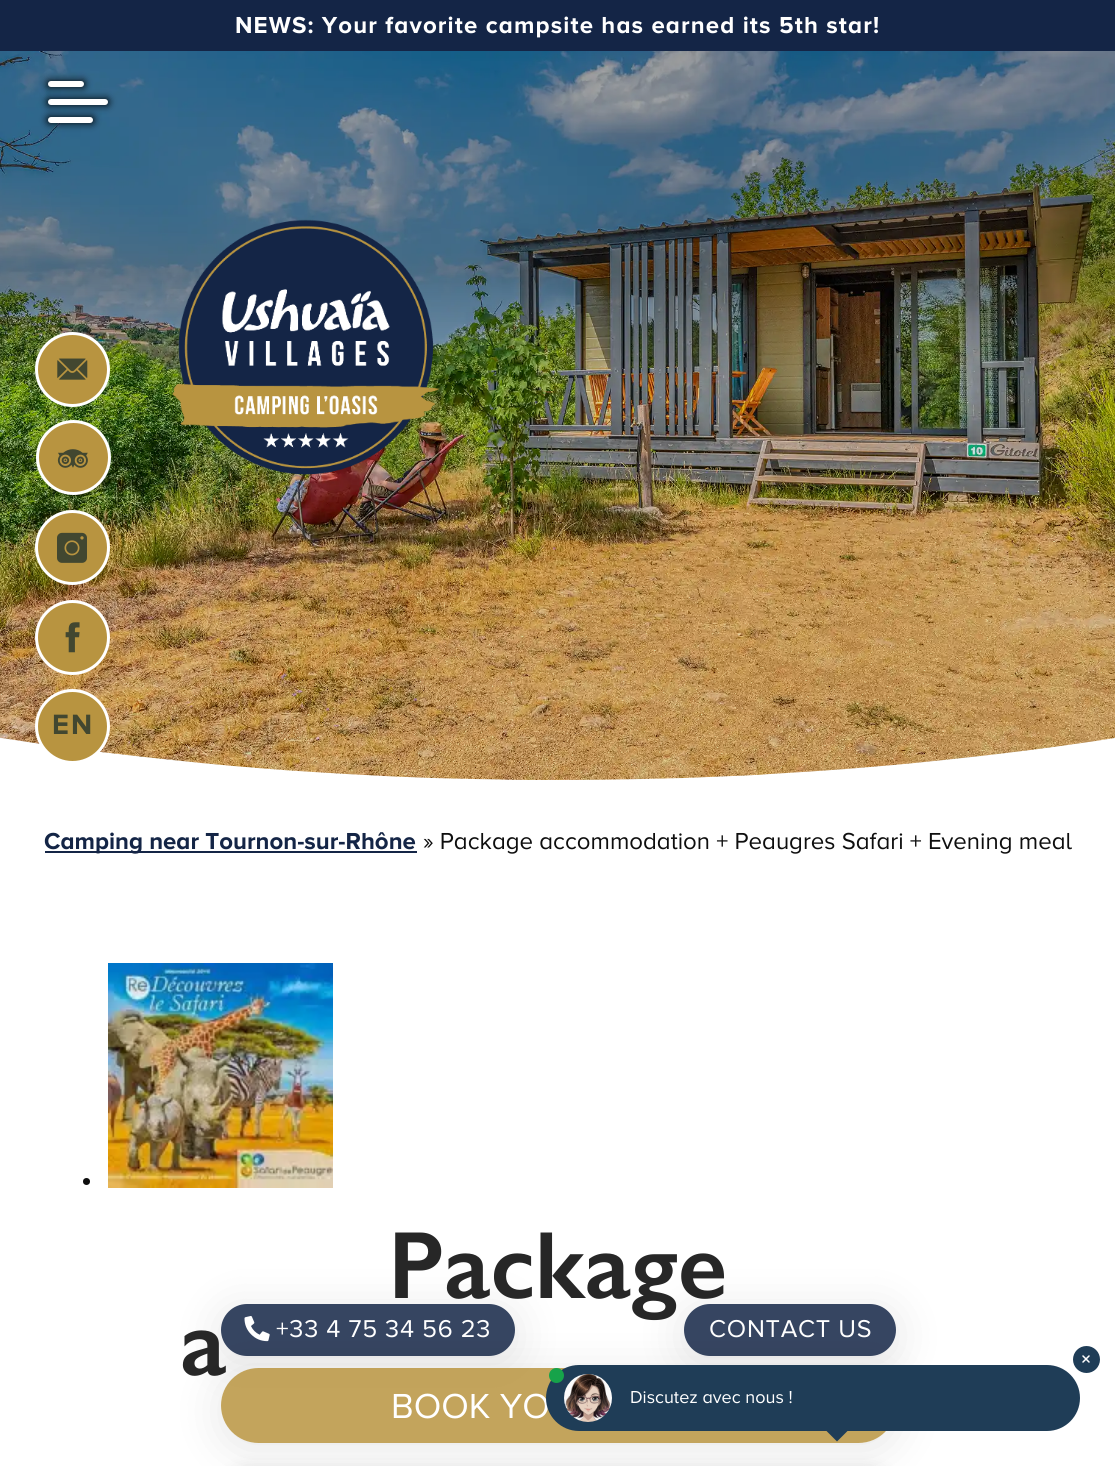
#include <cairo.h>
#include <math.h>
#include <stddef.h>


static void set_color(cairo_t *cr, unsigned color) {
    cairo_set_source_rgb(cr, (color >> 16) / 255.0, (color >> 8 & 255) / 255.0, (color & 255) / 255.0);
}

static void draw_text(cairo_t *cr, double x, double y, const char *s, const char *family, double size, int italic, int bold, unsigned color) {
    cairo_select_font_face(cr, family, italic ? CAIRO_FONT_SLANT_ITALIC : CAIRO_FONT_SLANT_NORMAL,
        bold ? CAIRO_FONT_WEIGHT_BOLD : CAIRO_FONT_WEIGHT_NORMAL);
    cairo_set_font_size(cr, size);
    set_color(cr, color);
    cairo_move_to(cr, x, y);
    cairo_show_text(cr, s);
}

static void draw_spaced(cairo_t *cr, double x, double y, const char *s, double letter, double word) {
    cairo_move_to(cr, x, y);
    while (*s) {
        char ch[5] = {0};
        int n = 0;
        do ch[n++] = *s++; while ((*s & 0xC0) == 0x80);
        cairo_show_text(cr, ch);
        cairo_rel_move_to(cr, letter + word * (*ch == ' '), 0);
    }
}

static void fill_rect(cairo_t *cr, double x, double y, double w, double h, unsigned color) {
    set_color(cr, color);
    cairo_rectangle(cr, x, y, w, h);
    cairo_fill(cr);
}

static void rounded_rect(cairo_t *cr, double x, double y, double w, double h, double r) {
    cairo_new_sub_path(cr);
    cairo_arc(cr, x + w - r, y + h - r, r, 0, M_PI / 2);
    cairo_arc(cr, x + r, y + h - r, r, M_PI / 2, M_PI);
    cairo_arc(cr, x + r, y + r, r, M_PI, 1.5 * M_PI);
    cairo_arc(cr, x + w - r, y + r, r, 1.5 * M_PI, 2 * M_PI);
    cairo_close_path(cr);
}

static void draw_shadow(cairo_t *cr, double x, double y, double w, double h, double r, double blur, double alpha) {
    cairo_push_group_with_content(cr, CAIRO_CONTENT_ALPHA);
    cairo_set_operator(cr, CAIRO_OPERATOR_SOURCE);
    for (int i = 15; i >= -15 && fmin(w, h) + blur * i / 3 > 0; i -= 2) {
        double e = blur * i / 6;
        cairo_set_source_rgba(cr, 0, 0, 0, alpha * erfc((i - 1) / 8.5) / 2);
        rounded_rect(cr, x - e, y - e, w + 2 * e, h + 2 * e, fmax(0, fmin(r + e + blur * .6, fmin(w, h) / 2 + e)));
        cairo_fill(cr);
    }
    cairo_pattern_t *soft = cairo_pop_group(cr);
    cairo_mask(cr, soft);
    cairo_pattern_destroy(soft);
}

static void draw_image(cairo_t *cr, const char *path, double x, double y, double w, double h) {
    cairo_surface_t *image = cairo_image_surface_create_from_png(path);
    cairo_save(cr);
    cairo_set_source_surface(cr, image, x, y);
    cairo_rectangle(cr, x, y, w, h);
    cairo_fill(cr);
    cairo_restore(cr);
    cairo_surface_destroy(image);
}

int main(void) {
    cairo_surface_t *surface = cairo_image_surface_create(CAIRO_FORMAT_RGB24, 1115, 1466);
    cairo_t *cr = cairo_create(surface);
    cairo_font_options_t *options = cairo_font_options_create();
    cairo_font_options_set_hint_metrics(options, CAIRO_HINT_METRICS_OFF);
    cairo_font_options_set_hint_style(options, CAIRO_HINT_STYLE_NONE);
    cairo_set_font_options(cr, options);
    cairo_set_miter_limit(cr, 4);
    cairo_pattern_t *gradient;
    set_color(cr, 0xFFFFFF);
    cairo_paint(cr);
    draw_image(cr, "assets/img2.png", 0, 51, 1115, 729);
    gradient = cairo_pattern_create_linear(558, 0, 558, 780);
    cairo_pattern_add_color_stop_rgba(gradient, 0.35, 0, 0, 0, 0.35);
    cairo_pattern_add_color_stop_rgba(gradient, 0.5, 0, 0, 0, 0.1);
    cairo_set_source(cr, gradient);
    cairo_pattern_destroy(gradient);
    cairo_new_path(cr);
    cairo_move_to(cr, 0, 0);
    cairo_line_to(cr, 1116, 0);
    cairo_line_to(cr, 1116, 738);
    cairo_curve_to(cr, 941, 765, 753, 780, 558, 780);
    cairo_curve_to(cr, 363, 780, 175, 765, 0, 738);
    cairo_close_path(cr);
    cairo_fill(cr);
    fill_rect(cr, 0, 0, 1115, 51, 0x142546);
    cairo_select_font_face(cr, "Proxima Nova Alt", CAIRO_FONT_SLANT_NORMAL, CAIRO_FONT_WEIGHT_BOLD);
    cairo_set_font_size(cr, 24);
    set_color(cr, 0xFFFFFF);
    draw_spaced(cr, 235, 33, "NEWS: Your favorite campsite has earned its 5th star!", 1.12, 0);
    set_color(cr, 0x000000);
    draw_shadow(cr, 48, 81, 36, 6, 3, 4, 0.99);
    set_color(cr, 0xFFFFFF);
    rounded_rect(cr, 48, 81, 36, 6, 3);
    cairo_fill(cr);
    set_color(cr, 0x000000);
    draw_shadow(cr, 48, 99, 60, 6, 3, 4, 0.99);
    set_color(cr, 0xFFFFFF);
    rounded_rect(cr, 48, 99, 60, 6, 3);
    cairo_fill(cr);
    set_color(cr, 0x000000);
    draw_shadow(cr, 48, 117, 45, 6, 3, 4, 0.99);
    set_color(cr, 0xFFFFFF);
    rounded_rect(cr, 48, 117, 45, 6, 3);
    cairo_fill(cr);
    draw_image(cr, "assets/img1.png", 172, 219, 267, 256);
    set_color(cr, 0xB89440);
    cairo_arc(cr, 72.5, 369.5, 36, 0, 2 * M_PI);
    cairo_fill_preserve(cr);
    set_color(cr, 0xFFFFFF);
    cairo_set_line_width(cr, 3);
    cairo_stroke(cr);
    draw_image(cr, "assets/img3.png", 57, 358, 31, 22);
    set_color(cr, 0xB89440);
    cairo_arc(cr, 73.5, 457.5, 36, 0, 2 * M_PI);
    cairo_fill_preserve(cr);
    set_color(cr, 0xFFFFFF);
    cairo_stroke(cr);
    draw_image(cr, "assets/img4.png", 57, 449, 31, 19);
    set_color(cr, 0xB89440);
    cairo_arc(cr, 72.5, 547.5, 36, 0, 2 * M_PI);
    cairo_fill_preserve(cr);
    set_color(cr, 0xFFFFFF);
    cairo_stroke(cr);
    draw_image(cr, "assets/img5.png", 57, 532, 30, 31);
    set_color(cr, 0xB89440);
    cairo_arc(cr, 72.5, 637.5, 36, 0, 2 * M_PI);
    cairo_fill_preserve(cr);
    set_color(cr, 0xFFFFFF);
    cairo_stroke(cr);
    draw_image(cr, "assets/img6.png", 65, 622, 15, 31);
    set_color(cr, 0xB89440);
    cairo_arc(cr, 72.5, 726.5, 36, 0, 2 * M_PI);
    cairo_fill_preserve(cr);
    set_color(cr, 0xFFFFFF);
    cairo_stroke(cr);
    cairo_set_font_size(cr, 29);
    set_color(cr, 0x424730);
    draw_spaced(cr, 52, 734, "EN", 2, 0);
    cairo_save(cr);
    cairo_set_fill_rule(cr, CAIRO_FILL_RULE_EVEN_ODD);
    cairo_new_path(cr);
    cairo_move_to(cr, 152, 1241);
    cairo_line_to(cr, 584, 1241);
    cairo_line_to(cr, 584, 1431);
    cairo_line_to(cr, 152, 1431);
    cairo_close_path(cr);
    cairo_move_to(cr, 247, 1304);
    cairo_line_to(cr, 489, 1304);
    cairo_curve_to(cr, 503.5, 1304, 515, 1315.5, 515, 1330);
    cairo_curve_to(cr, 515, 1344.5, 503.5, 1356, 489, 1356);
    cairo_line_to(cr, 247, 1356);
    cairo_curve_to(cr, 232.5, 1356, 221, 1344.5, 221, 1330);
    cairo_curve_to(cr, 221, 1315.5, 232.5, 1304, 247, 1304);
    cairo_close_path(cr);
    cairo_clip(cr);
    set_color(cr, 0x000000);
    draw_shadow(cr, 221, 1310, 294, 52, 26, 22.5, 0.1);
    cairo_restore(cr);
    draw_text(cr, 388, 1298, "Package", "Gill Sans SemiBold", 96, 0, 0, 0x272727);
    draw_text(cr, 180, 1375, "a", "Gill Sans SemiBold", 96, 0, 0, 0x272727);
    cairo_set_source_rgba(cr, 0.078, 0.145, 0.275, 0.85);
    rounded_rect(cr, 221, 1304, 294, 52, 26);
    cairo_fill(cr);
    draw_image(cr, "assets/img7.png", 244, 1316, 26, 26);
    cairo_select_font_face(cr, "Proxima Nova Alt", CAIRO_FONT_SLANT_NORMAL, CAIRO_FONT_WEIGHT_NORMAL);
    cairo_set_font_size(cr, 25.25);
    set_color(cr, 0xFFFFFF);
    draw_spaced(cr, 276, 1337, "+33 4 75 34 56 23", 0.75, 0);
    cairo_save(cr);
    cairo_set_fill_rule(cr, CAIRO_FILL_RULE_EVEN_ODD);
    cairo_new_path(cr);
    cairo_move_to(cr, 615, 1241);
    cairo_line_to(cr, 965, 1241);
    cairo_line_to(cr, 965, 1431);
    cairo_line_to(cr, 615, 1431);
    cairo_close_path(cr);
    cairo_move_to(cr, 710, 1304);
    cairo_line_to(cr, 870, 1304);
    cairo_curve_to(cr, 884.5, 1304, 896, 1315.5, 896, 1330);
    cairo_curve_to(cr, 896, 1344.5, 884.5, 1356, 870, 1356);
    cairo_line_to(cr, 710, 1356);
    cairo_curve_to(cr, 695.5, 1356, 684, 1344.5, 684, 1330);
    cairo_curve_to(cr, 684, 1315.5, 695.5, 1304, 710, 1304);
    cairo_close_path(cr);
    cairo_clip(cr);
    set_color(cr, 0x000000);
    draw_shadow(cr, 684, 1310, 212, 52, 26, 22.5, 0.1);
    cairo_restore(cr);
    cairo_set_source_rgba(cr, 0.078, 0.145, 0.275, 0.85);
    rounded_rect(cr, 684, 1304, 212, 52, 26);
    cairo_fill(cr);
    set_color(cr, 0xFFFFFF);
    draw_spaced(cr, 709, 1337, "CONTACT US", 0.75, 0);
    cairo_save(cr);
    cairo_set_fill_rule(cr, CAIRO_FILL_RULE_EVEN_ODD);
    cairo_new_path(cr);
    cairo_move_to(cr, 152, 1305);
    cairo_line_to(cr, 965, 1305);
    cairo_line_to(cr, 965, 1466);
    cairo_line_to(cr, 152, 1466);
    cairo_close_path(cr);
    cairo_move_to(cr, 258.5, 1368);
    cairo_line_to(cr, 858.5, 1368);
    cairo_curve_to(cr, 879, 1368, 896, 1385, 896, 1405.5);
    cairo_curve_to(cr, 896, 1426, 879, 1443, 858.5, 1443);
    cairo_line_to(cr, 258.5, 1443);
    cairo_curve_to(cr, 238, 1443, 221, 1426, 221, 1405.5);
    cairo_curve_to(cr, 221, 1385, 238, 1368, 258.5, 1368);
    cairo_close_path(cr);
    cairo_clip(cr);
    set_color(cr, 0x000000);
    draw_shadow(cr, 221, 1374, 675, 75, 37.5, 22.5, 0.1);
    cairo_restore(cr);
    cairo_set_source_rgba(cr, 0.722, 0.58, 0.251, 0.85);
    rounded_rect(cr, 221, 1368, 675, 75, 37.5);
    cairo_fill(cr);
    draw_text(cr, 391, 1418, "BOOK YO", "Proxima Nova Alt", 36, 0, 0, 0xFFFFFF);
    set_color(cr, 0x000000);
    draw_shadow(cr, 221, 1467, 675, 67, 45, 7.5, 0.1);
    fill_rect(cr, 45, 851, 372, 2, 0x142546);
    draw_text(cr, 44, 849, "Camping near Tournon-sur-Rhône", "Proxima Nova Alt", 24, 0, 1, 0x142546);
    draw_text(cr, 423, 849, "» Package accommodation + Peaugres Safari + Evening meal", "Proxima Nova Alt", 24, 0, 0, 0x0E0E0E);
    cairo_new_path(cr);
    cairo_arc(cr, 86.5, 1181.5, 3.5, 0, 2 * M_PI);
    cairo_fill(cr);
    draw_image(cr, "assets/img8.png", 108, 963, 225, 225);
    set_color(cr, 0x1F3D57);
    rounded_rect(cr, 546, 1365, 534, 66, 33);
    cairo_fill(cr);
    cairo_arc(cr, 1086.5, 1359.5, 13.5, 0, 2 * M_PI);
    cairo_fill(cr);
    cairo_new_path(cr);
    cairo_move_to(cr, 1083, 1356);
    cairo_line_to(cr, 1089, 1362);
    cairo_move_to(cr, 1083, 1362);
    cairo_line_to(cr, 1089, 1356);
    set_color(cr, 0xFFFFFF);
    cairo_set_line_width(cr, 1.5);
    cairo_set_line_cap(cr, CAIRO_LINE_CAP_ROUND);
    cairo_set_line_join(cr, CAIRO_LINE_JOIN_ROUND);
    cairo_stroke(cr);
    set_color(cr, 0x16A34A);
    cairo_arc(cr, 556.5, 1375.5, 7.5, 0, 2 * M_PI);
    cairo_fill(cr);
    draw_image(cr, "assets/img9.png", 564, 1374, 48, 48);
    draw_text(cr, 630, 1403, "Discutez avec nous !", "Proxima Nova Alt", 18, 0, 0, 0xFFFFFF);
    set_color(cr, 0x1F3D57);
    cairo_new_path(cr);
    cairo_move_to(cr, 825, 1429.5);
    cairo_line_to(cr, 849, 1429.5);
    cairo_line_to(cr, 837, 1441.5);
    cairo_close_path(cr);
    cairo_fill(cr);
    cairo_surface_write_to_png(surface, "output.png");
    cairo_font_options_destroy(options);
    cairo_destroy(cr);
    cairo_surface_destroy(surface);
    return 0;
}
